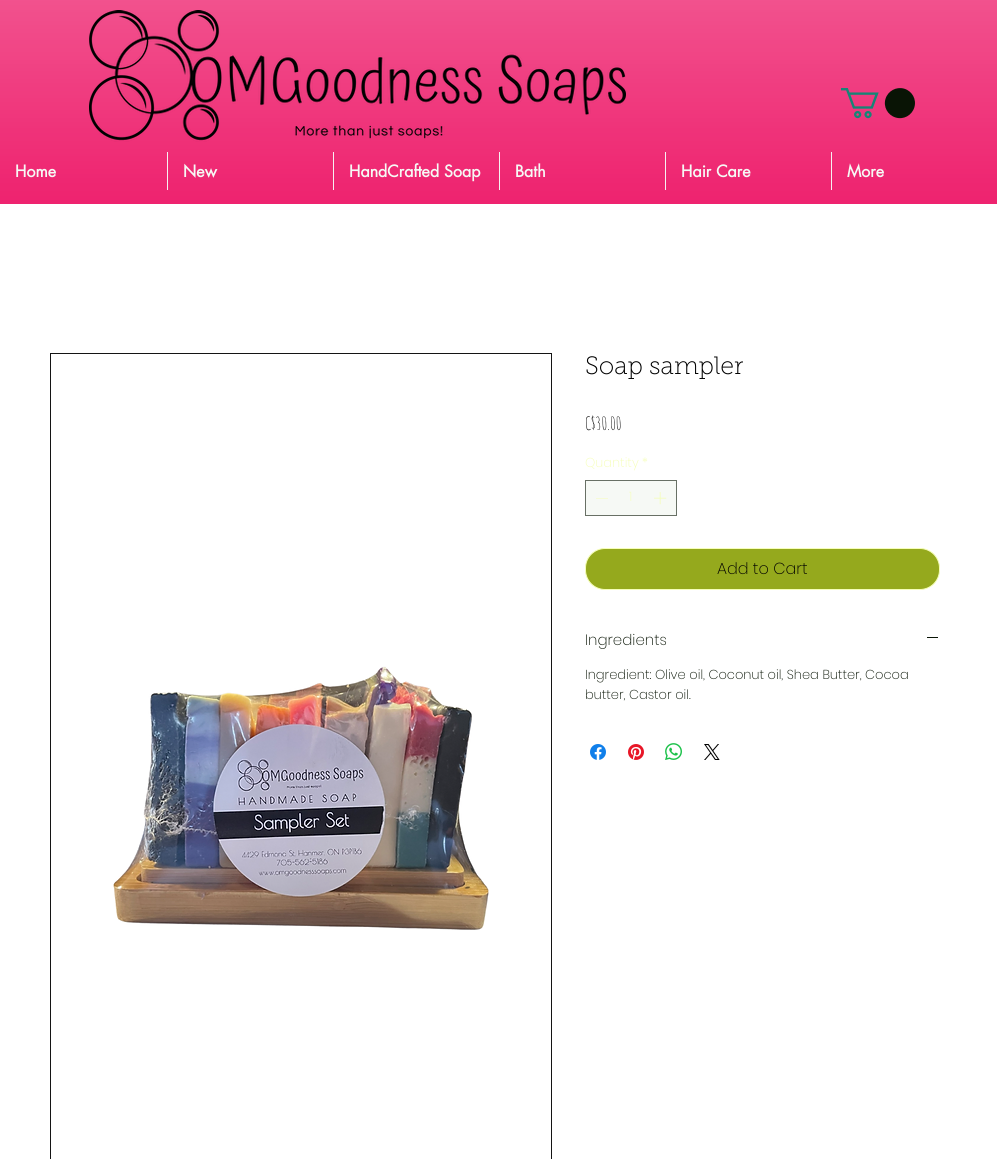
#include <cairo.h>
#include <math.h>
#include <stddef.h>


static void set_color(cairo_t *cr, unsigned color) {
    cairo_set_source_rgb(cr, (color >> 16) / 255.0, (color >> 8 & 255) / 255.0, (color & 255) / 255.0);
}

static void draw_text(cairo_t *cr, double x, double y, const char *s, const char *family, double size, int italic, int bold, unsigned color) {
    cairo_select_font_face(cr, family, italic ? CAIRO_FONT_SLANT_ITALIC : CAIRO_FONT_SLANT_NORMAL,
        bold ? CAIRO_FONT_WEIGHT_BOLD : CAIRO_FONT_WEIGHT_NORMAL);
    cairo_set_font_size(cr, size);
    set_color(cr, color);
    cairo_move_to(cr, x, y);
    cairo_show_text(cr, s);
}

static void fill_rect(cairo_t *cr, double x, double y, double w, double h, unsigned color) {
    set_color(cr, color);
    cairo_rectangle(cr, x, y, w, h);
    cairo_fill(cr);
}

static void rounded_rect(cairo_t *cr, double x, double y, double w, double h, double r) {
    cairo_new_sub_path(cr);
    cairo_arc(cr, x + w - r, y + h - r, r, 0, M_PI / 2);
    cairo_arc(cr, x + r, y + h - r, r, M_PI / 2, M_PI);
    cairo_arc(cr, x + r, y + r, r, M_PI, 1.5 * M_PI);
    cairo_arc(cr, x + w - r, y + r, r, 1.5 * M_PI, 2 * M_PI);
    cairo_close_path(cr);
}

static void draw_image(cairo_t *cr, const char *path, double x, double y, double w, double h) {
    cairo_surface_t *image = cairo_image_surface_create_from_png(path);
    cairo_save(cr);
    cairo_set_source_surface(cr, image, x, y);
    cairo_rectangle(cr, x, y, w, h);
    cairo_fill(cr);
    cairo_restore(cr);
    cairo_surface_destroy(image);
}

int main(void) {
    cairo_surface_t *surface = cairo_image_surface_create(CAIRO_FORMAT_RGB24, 997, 1159);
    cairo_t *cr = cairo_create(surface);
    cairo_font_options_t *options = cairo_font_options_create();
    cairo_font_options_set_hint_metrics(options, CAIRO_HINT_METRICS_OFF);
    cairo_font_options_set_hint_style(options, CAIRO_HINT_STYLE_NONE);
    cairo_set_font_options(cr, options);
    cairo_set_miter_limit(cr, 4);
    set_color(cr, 0xFFFFFF);
    cairo_paint(cr);
    fill_rect(cr, 0, 0, 997, 204, 0xED1566);
    draw_image(cr, "assets/img1.png", 0, 0, 997, 204);
    draw_image(cr, "assets/img2.png", 89, 10, 537, 132);
    draw_image(cr, "assets/img3.png", 841, 88, 74, 31);
    draw_text(cr, 15, 177, "Home", "futura", 16, 0, 1, 0xF6F9F5);
    cairo_set_source_rgba(cr, 0.965, 0.976, 0.961, 0.96);
    cairo_rectangle(cr, 167, 152, 1, 38);
    cairo_fill(cr);
    draw_text(cr, 183, 177, "New", "futura", 16, 0, 1, 0xF6F9F5);
    cairo_set_source_rgba(cr, 0.965, 0.976, 0.961, 0.96);
    cairo_rectangle(cr, 333, 152, 1, 38);
    cairo_fill(cr);
    draw_text(cr, 349, 177, "HandCrafted Soap", "futura", 16, 0, 1, 0xF6F9F5);
    cairo_set_source_rgba(cr, 0.965, 0.976, 0.961, 0.96);
    cairo_rectangle(cr, 499, 152, 1, 38);
    cairo_fill(cr);
    draw_text(cr, 515, 177, "Bath", "futura", 16, 0, 1, 0xF6F9F5);
    cairo_set_source_rgba(cr, 0.965, 0.976, 0.961, 0.96);
    cairo_rectangle(cr, 665, 152, 1, 38);
    cairo_fill(cr);
    draw_text(cr, 681, 177, "Hair Care", "futura", 16, 0, 1, 0xF6F9F5);
    cairo_set_source_rgba(cr, 0.965, 0.976, 0.961, 0.96);
    cairo_rectangle(cr, 831, 152, 1, 38);
    cairo_fill(cr);
    draw_text(cr, 847, 177, "More", "futura", 16, 0, 1, 0xF6F9F5);
    cairo_rectangle(cr, 50.5, 353.5, 501, 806);
    set_color(cr, 0x141414);
    cairo_set_line_width(cr, 1);
    cairo_stroke(cr);
    draw_image(cr, "assets/img4.png", 113, 666, 376, 264);
    draw_text(cr, 585, 374, "Soap sampler", "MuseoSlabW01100 Thin", 25, 0, 0, 0x000000);
    draw_text(cr, 585, 430, "C$30.00", "Amatic SC", 18, 0, 0, 0x000000);
    draw_text(cr, 585, 467, "Quantity", "Poppins ExtraLight", 13, 0, 0, 0xF5FEB8);
    draw_text(cr, 642, 467, "*", "Poppins ExtraLight", 13, 0, 0, 0xF5FEB8);
    set_color(cr, 0xF6F9F5);
    cairo_rectangle(cr, 585.5, 480.5, 91, 35);
    cairo_fill_preserve(cr);
    set_color(cr, 0x687065);
    cairo_stroke(cr);
    set_color(cr, 0xF5FEB8);
    cairo_set_fill_rule(cr, CAIRO_FILL_RULE_EVEN_ODD);
    cairo_new_path(cr);
    cairo_move_to(cr, 608, 498);
    cairo_line_to(cr, 608, 498.5);
    cairo_line_to(cr, 596, 498.5);
    cairo_line_to(cr, 596, 498);
    cairo_close_path(cr);
    cairo_fill(cr);
    draw_text(cr, 629, 501, "1", "Poppins ExtraLight", 13, 0, 0, 0xF5FEB8);
    draw_image(cr, "assets/img5.png", 654, 492, 13, 13);
    set_color(cr, 0x95A91D);
    rounded_rect(cr, 585.5, 548.5, 354, 41, 19.5);
    cairo_fill_preserve(cr);
    set_color(cr, 0xF5FEB8);
    cairo_stroke(cr);
    draw_text(cr, 717, 574, "Add to Cart", "Poppins ExtraLight", 16, 0, 0, 0x000000);
    draw_text(cr, 585, 645, "Ingredients", "Poppins ExtraLight", 15, 0, 0, 0x091405);
    fill_rect(cr, 927, 637, 11, 1, 0x091405);
    draw_text(cr, 585, 679, "Ingredient: Olive oil, Coconut oil, Shea Butter, Cocoa", "Poppins ExtraLight", 13, 0, 0, 0x091405);
    draw_text(cr, 585, 699, "butter, Castor oil.", "Poppins ExtraLight", 13, 0, 0, 0x091405);
    draw_image(cr, "assets/img6.png", 590, 744, 16, 16);
    draw_image(cr, "assets/img7.png", 628, 744, 16, 16);
    draw_image(cr, "assets/img8.png", 665, 743, 17, 17);
    draw_image(cr, "assets/img9.png", 704, 744, 16, 16);
    cairo_surface_write_to_png(surface, "output.png");
    cairo_font_options_destroy(options);
    cairo_destroy(cr);
    cairo_surface_destroy(surface);
    return 0;
}
